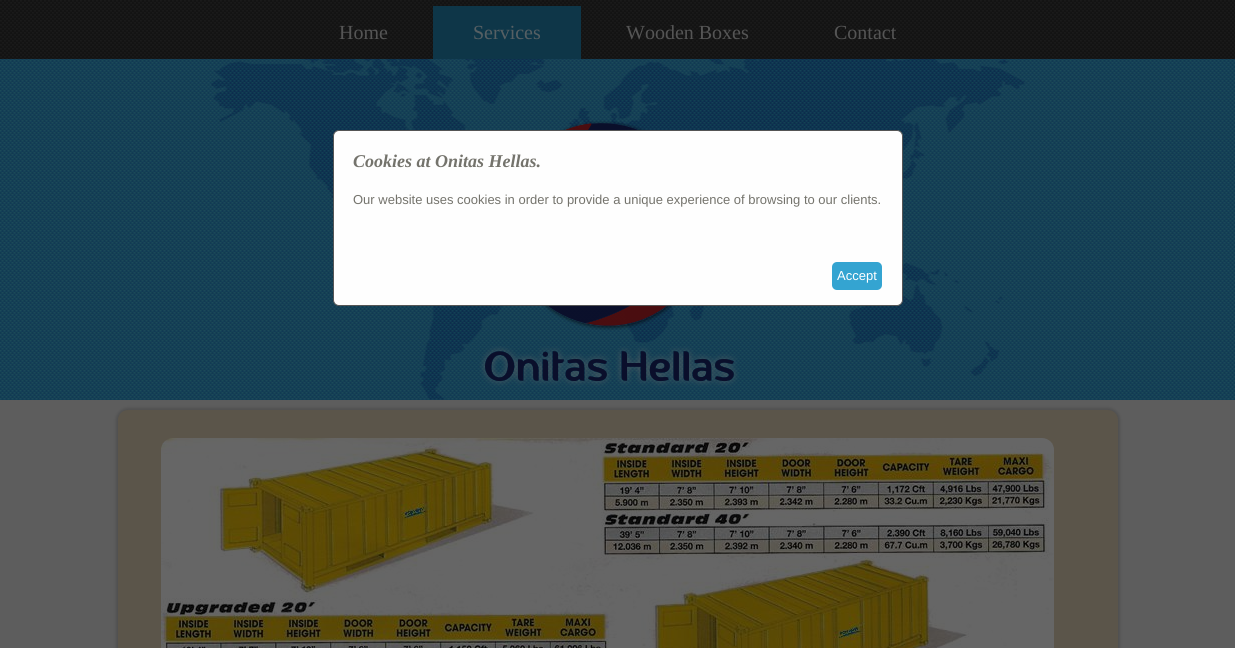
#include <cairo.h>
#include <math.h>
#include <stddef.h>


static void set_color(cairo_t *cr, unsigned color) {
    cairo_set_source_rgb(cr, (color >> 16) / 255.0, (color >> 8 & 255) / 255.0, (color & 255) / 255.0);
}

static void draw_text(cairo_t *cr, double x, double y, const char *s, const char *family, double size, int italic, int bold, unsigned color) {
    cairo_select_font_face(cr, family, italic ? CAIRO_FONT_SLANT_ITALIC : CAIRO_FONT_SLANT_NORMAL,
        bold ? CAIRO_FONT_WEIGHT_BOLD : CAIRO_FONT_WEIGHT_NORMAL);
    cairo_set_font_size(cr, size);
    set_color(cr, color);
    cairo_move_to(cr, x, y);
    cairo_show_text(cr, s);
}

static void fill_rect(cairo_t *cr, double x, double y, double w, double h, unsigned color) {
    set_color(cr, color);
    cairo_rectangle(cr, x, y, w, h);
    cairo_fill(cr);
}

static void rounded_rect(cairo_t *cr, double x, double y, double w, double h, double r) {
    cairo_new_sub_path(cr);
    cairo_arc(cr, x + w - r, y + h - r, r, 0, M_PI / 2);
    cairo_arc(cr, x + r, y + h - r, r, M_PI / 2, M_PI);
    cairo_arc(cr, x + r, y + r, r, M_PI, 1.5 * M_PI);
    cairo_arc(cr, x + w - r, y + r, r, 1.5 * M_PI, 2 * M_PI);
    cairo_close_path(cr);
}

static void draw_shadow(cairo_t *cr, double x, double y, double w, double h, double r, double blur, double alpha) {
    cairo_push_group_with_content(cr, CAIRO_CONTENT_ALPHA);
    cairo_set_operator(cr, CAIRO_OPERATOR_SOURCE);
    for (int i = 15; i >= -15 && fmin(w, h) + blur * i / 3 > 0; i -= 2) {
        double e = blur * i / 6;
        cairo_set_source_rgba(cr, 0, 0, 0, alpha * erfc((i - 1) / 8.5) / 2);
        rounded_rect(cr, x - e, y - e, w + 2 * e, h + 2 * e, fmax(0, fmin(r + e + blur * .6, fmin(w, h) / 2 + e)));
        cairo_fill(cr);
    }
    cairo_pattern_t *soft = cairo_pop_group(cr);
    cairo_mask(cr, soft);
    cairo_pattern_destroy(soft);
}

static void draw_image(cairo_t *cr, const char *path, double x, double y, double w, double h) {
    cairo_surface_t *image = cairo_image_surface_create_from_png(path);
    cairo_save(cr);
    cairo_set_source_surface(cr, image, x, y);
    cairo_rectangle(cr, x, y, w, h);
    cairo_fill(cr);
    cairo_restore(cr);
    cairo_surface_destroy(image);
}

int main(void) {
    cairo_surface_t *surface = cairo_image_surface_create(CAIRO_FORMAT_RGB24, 1235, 648);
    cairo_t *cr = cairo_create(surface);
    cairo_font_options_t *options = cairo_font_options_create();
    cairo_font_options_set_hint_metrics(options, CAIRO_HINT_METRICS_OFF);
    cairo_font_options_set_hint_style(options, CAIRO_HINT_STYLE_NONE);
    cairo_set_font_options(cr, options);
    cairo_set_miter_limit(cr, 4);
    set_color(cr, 0x5D5D5D);
    cairo_paint(cr);
    draw_image(cr, "assets/img1.png", 0, 59, 1235, 341);
    fill_rect(cr, 0, 0, 1235, 59, 0x161616);
    draw_image(cr, "assets/img2.png", 0, 0, 1235, 59);
    draw_text(cr, 339, 39, "Home", "Liberation Serif", 20, 0, 0, 0x555555);
    fill_rect(cr, 433, 6, 148, 53, 0x0E3648);
    draw_text(cr, 473, 39, "Services", "Liberation Serif", 20, 0, 0, 0x565F63);
    draw_text(cr, 626, 39, "Wooden Boxes", "Liberation Serif", 20, 0, 0, 0x555555);
    draw_text(cr, 834, 39, "Contact", "Liberation Serif", 20, 0, 0, 0x555555);
    draw_image(cr, "assets/img3.png", 542, 120, 133, 211);
    draw_image(cr, "assets/img4.png", 479, 346, 260, 41);
    set_color(cr, 0x000000);
    draw_shadow(cr, 116, 408, 1004, 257, 12, 1.5, 0.15);
    set_color(cr, 0x5B554A);
    rounded_rect(cr, 118, 410, 1000, 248, 10);
    cairo_fill(cr);
    draw_image(cr, "assets/img5.png", 161, 438, 893, 210);
    set_color(cr, 0xFEFEFE);
    rounded_rect(cr, 333.5, 130.5, 569, 175, 5.5);
    cairo_fill_preserve(cr);
    set_color(cr, 0x555555);
    cairo_set_line_width(cr, 1);
    cairo_stroke(cr);
    draw_text(cr, 353, 167, "Cookies at Onitas Hellas.", "Liberation Serif", 18, 1, 1, 0x74736C);
    draw_text(cr, 353, 204, "Our website uses cookies in order to provide a unique experience of browsing to our clients.", "Liberation Sans", 13, 0, 0, 0x74736C);
    set_color(cr, 0x34A4D1);
    rounded_rect(cr, 832, 262, 50, 28, 5);
    cairo_fill(cr);
    draw_text(cr, 837, 280, "Accept", "Liberation Sans", 13, 0, 0, 0xFFFFFF);
    cairo_surface_write_to_png(surface, "output.png");
    cairo_font_options_destroy(options);
    cairo_destroy(cr);
    cairo_surface_destroy(surface);
    return 0;
}
